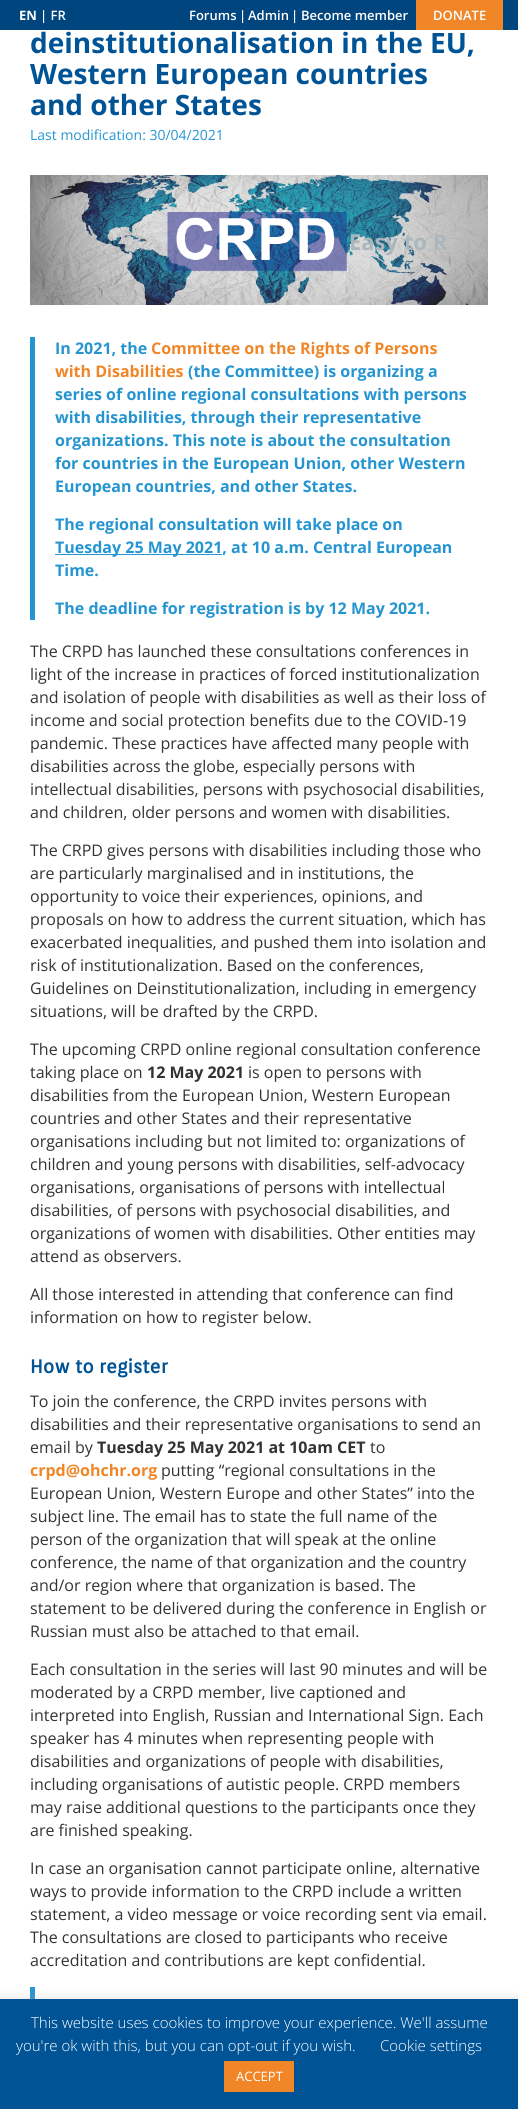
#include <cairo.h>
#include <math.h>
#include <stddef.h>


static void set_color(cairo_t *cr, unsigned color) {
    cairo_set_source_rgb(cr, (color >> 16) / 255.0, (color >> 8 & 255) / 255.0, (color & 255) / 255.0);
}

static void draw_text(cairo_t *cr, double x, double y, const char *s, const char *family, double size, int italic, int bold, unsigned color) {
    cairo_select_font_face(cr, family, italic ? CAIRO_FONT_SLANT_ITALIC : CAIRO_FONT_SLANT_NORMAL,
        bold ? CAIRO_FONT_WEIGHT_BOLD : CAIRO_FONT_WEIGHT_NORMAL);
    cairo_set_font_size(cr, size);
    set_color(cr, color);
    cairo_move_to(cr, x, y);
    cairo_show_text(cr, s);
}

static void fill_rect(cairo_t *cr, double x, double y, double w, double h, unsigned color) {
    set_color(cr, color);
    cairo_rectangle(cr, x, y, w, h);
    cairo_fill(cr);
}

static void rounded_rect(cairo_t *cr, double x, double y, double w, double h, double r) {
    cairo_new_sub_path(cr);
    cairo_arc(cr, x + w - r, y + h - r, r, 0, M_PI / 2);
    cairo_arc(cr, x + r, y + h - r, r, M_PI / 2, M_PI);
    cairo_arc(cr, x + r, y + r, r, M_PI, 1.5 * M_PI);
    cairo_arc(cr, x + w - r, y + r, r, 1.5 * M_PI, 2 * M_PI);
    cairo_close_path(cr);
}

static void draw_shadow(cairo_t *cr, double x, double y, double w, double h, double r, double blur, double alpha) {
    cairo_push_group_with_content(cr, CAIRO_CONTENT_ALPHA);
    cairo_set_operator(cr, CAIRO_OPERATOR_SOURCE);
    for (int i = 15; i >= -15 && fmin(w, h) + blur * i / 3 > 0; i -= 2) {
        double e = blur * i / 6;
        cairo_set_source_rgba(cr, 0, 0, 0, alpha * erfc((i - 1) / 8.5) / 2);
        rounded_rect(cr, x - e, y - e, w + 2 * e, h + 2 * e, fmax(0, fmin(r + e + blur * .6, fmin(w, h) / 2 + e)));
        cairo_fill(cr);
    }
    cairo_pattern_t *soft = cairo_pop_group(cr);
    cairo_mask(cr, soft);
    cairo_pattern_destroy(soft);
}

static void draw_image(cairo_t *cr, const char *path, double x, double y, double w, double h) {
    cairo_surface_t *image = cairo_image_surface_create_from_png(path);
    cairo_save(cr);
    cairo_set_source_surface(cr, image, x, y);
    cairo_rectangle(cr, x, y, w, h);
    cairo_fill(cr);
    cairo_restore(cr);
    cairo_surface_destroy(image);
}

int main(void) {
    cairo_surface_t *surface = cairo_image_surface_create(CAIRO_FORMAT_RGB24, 518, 2109);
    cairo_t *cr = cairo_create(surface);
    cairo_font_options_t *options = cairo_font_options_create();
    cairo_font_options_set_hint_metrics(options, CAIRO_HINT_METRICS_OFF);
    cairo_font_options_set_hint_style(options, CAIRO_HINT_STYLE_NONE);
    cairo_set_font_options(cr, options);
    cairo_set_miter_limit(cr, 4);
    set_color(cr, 0xFFFFFF);
    cairo_paint(cr);
    fill_rect(cr, 0, 0, 518, 30, 0x00457D);
    draw_text(cr, 19, 20, "EN", "Open Sans", 13, 0, 1, 0xFFFFFF);
    draw_text(cr, 40, 20, "| FR", "Open Sans SemiBold", 13, 0, 0, 0xFFFFFF);
    draw_text(cr, 189, 20, "Forums", "Open Sans SemiBold", 13, 0, 0, 0xFFFFFF);
    draw_text(cr, 239, 20, "|", "Open Sans SemiBold", 13, 0, 0, 0xFFFFFF);
    draw_text(cr, 248, 20, "Admin", "Open Sans SemiBold", 13, 0, 0, 0xFFFFFF);
    draw_text(cr, 291, 20, "|", "Open Sans SemiBold", 13, 0, 0, 0xFFFFFF);
    draw_text(cr, 301, 20, "Become member", "Open Sans SemiBold", 13, 0, 0, 0xFFFFFF);
    fill_rect(cr, 416, 0, 87, 30, 0xF08628);
    draw_text(cr, 433, 20, "DONATE", "Open Sans SemiBold", 13, 0, 0, 0xFFFFFF);
    draw_text(cr, 30, 53, "deinstitutionalisation in the EU,", "Open Sans", 28, 0, 1, 0x005395);
    draw_text(cr, 30, 84, "Western European countries", "Open Sans", 28, 0, 1, 0x005395);
    draw_text(cr, 30, 115, "and other States", "Open Sans", 28, 0, 1, 0x005395);
    draw_text(cr, 30, 140, "Last modification: 30/04/2021", "Open Sans", 14, 0, 0, 0x2595D2);
    draw_image(cr, "assets/img1.png", 30, 175, 458, 130);
    fill_rect(cr, 30, 337, 5, 283, 0x2595D2);
    draw_text(cr, 55, 354, "In 2021, the", "Open Sans", 16, 0, 1, 0x2595D2);
    draw_text(cr, 151, 354, "Committee on the Rights of Persons", "Open Sans", 16, 0, 1, 0xF08628);
    draw_text(cr, 55, 377, "with Disabilities", "Open Sans", 16, 0, 1, 0xF08628);
    draw_text(cr, 188, 377, "(the Committee) is organizing a", "Open Sans", 16, 0, 1, 0x2595D2);
    draw_text(cr, 55, 400, "series of online regional consultations with persons", "Open Sans", 16, 0, 1, 0x2595D2);
    draw_text(cr, 55, 423, "with disabilities, through their representative", "Open Sans", 16, 0, 1, 0x2595D2);
    draw_text(cr, 55, 446, "organizations. This note is about the consultation", "Open Sans", 16, 0, 1, 0x2595D2);
    draw_text(cr, 55, 469, "for countries in the European Union, other Western", "Open Sans", 16, 0, 1, 0x2595D2);
    draw_text(cr, 55, 492, "European countries, and other States.", "Open Sans", 16, 0, 1, 0x2595D2);
    draw_text(cr, 55, 530, "The regional consultation will take place on", "Open Sans", 16, 0, 1, 0x2595D2);
    fill_rect(cr, 55, 554, 167, 1, 0x2595D2);
    draw_text(cr, 55, 553, "Tuesday 25 May 2021, at 10 a.m. Central European", "Open Sans", 16, 0, 1, 0x2595D2);
    draw_text(cr, 55, 576, "Time.", "Open Sans", 16, 0, 1, 0x2595D2);
    draw_text(cr, 55, 614, "The deadline for registration is by 12 May 2021.", "Open Sans", 16, 0, 1, 0x2595D2);
    draw_text(cr, 30, 657, "The CRPD has launched these consultations conferences in", "Open Sans", 16, 0, 0, 0x333333);
    draw_text(cr, 30, 680, "light of the increase in practices of forced institutionalization", "Open Sans", 16, 0, 0, 0x333333);
    draw_text(cr, 30, 703, "and isolation of people with disabilities as well as their loss of", "Open Sans", 16, 0, 0, 0x333333);
    draw_text(cr, 30, 726, "income and social protection benefits due to the COVID-19", "Open Sans", 16, 0, 0, 0x333333);
    draw_text(cr, 30, 749, "pandemic. These practices have affected many people with", "Open Sans", 16, 0, 0, 0x333333);
    draw_text(cr, 30, 772, "disabilities across the globe, especially persons with", "Open Sans", 16, 0, 0, 0x333333);
    draw_text(cr, 30, 795, "intellectual disabilities, persons with psychosocial disabilities,", "Open Sans", 16, 0, 0, 0x333333);
    draw_text(cr, 30, 818, "and children, older persons and women with disabilities.", "Open Sans", 16, 0, 0, 0x333333);
    draw_text(cr, 30, 856, "The CRPD gives persons with disabilities including those who", "Open Sans", 16, 0, 0, 0x333333);
    draw_text(cr, 30, 879, "are particularly marginalised and in institutions, the", "Open Sans", 16, 0, 0, 0x333333);
    draw_text(cr, 30, 902, "opportunity to voice their experiences, opinions, and", "Open Sans", 16, 0, 0, 0x333333);
    draw_text(cr, 30, 925, "proposals on how to address the current situation, which has", "Open Sans", 16, 0, 0, 0x333333);
    draw_text(cr, 30, 948, "exacerbated inequalities, and pushed them into isolation and", "Open Sans", 16, 0, 0, 0x333333);
    draw_text(cr, 30, 971, "risk of institutionalization. Based on the conferences,", "Open Sans", 16, 0, 0, 0x333333);
    draw_text(cr, 30, 994, "Guidelines on Deinstitutionalization, including in emergency", "Open Sans", 16, 0, 0, 0x333333);
    draw_text(cr, 30, 1017, "situations, will be drafted by the CRPD.", "Open Sans", 16, 0, 0, 0x333333);
    draw_text(cr, 30, 1055, "The upcoming CRPD online regional consultation conference", "Open Sans", 16, 0, 0, 0x333333);
    draw_text(cr, 30, 1078, "taking place on", "Open Sans", 16, 0, 0, 0x333333);
    draw_text(cr, 147, 1078, "12 May 2021", "Open Sans", 16, 0, 1, 0x333333);
    draw_text(cr, 248, 1078, "is open to persons with", "Open Sans", 16, 0, 0, 0x333333);
    draw_text(cr, 30, 1101, "disabilities from the European Union, Western European", "Open Sans", 16, 0, 0, 0x333333);
    draw_text(cr, 30, 1124, "countries and other States and their representative", "Open Sans", 16, 0, 0, 0x333333);
    draw_text(cr, 30, 1147, "organisations including but not limited to: organizations of", "Open Sans", 16, 0, 0, 0x333333);
    draw_text(cr, 30, 1170, "children and young persons with disabilities, self-advocacy", "Open Sans", 16, 0, 0, 0x333333);
    draw_text(cr, 30, 1193, "organisations, organisations of persons with intellectual", "Open Sans", 16, 0, 0, 0x333333);
    draw_text(cr, 30, 1216, "disabilities, of persons with psychosocial disabilities, and", "Open Sans", 16, 0, 0, 0x333333);
    draw_text(cr, 30, 1239, "organizations of women with disabilities. Other entities may", "Open Sans", 16, 0, 0, 0x333333);
    draw_text(cr, 30, 1262, "attend as observers.", "Open Sans", 16, 0, 0, 0x333333);
    draw_text(cr, 30, 1300, "All those interested in attending that conference can find", "Open Sans", 16, 0, 0, 0x333333);
    draw_text(cr, 30, 1323, "information on how to register below.", "Open Sans", 16, 0, 0, 0x333333);
    draw_text(cr, 30, 1373, "How to register", "Orienta", 18.75, 0, 1, 0x005395);
    draw_text(cr, 30, 1407, "To join the conference, the CRPD invites persons with", "Open Sans", 16, 0, 0, 0x333333);
    draw_text(cr, 30, 1430, "disabilities and their representative organisations to send an", "Open Sans", 16, 0, 0, 0x333333);
    draw_text(cr, 30, 1453, "email by", "Open Sans", 16, 0, 0, 0x333333);
    draw_text(cr, 97, 1453, "Tuesday 25 May 2021 at 10am CET", "Open Sans", 16, 0, 1, 0x333333);
    draw_text(cr, 370, 1453, "to", "Open Sans", 16, 0, 0, 0x333333);
    draw_text(cr, 30, 1476, "crpd@ohchr.org", "Open Sans", 16, 0, 1, 0xF08628);
    draw_text(cr, 161, 1476, "putting “regional consultations in the", "Open Sans", 16, 0, 0, 0x333333);
    draw_text(cr, 30, 1499, "European Union, Western Europe and other States” into the", "Open Sans", 16, 0, 0, 0x333333);
    draw_text(cr, 30, 1522, "subject line. The email has to state the full name of the", "Open Sans", 16, 0, 0, 0x333333);
    draw_text(cr, 30, 1545, "person of the organization that will speak at the online", "Open Sans", 16, 0, 0, 0x333333);
    draw_text(cr, 30, 1568, "conference, the name of that organization and the country", "Open Sans", 16, 0, 0, 0x333333);
    draw_text(cr, 30, 1591, "and/or region where that organization is based. The", "Open Sans", 16, 0, 0, 0x333333);
    draw_text(cr, 30, 1614, "statement to be delivered during the conference in English or", "Open Sans", 16, 0, 0, 0x333333);
    draw_text(cr, 30, 1637, "Russian must also be attached to that email.", "Open Sans", 16, 0, 0, 0x333333);
    draw_text(cr, 30, 1675, "Each consultation in the series will last 90 minutes and will be", "Open Sans", 16, 0, 0, 0x333333);
    draw_text(cr, 30, 1698, "moderated by a CRPD member, live captioned and", "Open Sans", 16, 0, 0, 0x333333);
    draw_text(cr, 30, 1721, "interpreted into English, Russian and International Sign. Each", "Open Sans", 16, 0, 0, 0x333333);
    draw_text(cr, 30, 1744, "speaker has 4 minutes when representing people with", "Open Sans", 16, 0, 0, 0x333333);
    draw_text(cr, 30, 1767, "disabilities and organizations of people with disabilities,", "Open Sans", 16, 0, 0, 0x333333);
    draw_text(cr, 30, 1790, "including organisations of autistic people. CRPD members", "Open Sans", 16, 0, 0, 0x333333);
    draw_text(cr, 30, 1813, "may raise additional questions to the participants once they", "Open Sans", 16, 0, 0, 0x333333);
    draw_text(cr, 30, 1836, "are finished speaking.", "Open Sans", 16, 0, 0, 0x333333);
    draw_text(cr, 30, 1874, "In case an organisation cannot participate online, alternative", "Open Sans", 16, 0, 0, 0x333333);
    draw_text(cr, 30, 1897, "ways to provide information to the CRPD include a written", "Open Sans", 16, 0, 0, 0x333333);
    draw_text(cr, 30, 1920, "statement, a video message or voice recording sent via email.", "Open Sans", 16, 0, 0, 0x333333);
    draw_text(cr, 30, 1943, "The consultations are closed to participants who receive", "Open Sans", 16, 0, 0, 0x333333);
    draw_text(cr, 30, 1966, "accreditation and contributions are kept confidential.", "Open Sans", 16, 0, 0, 0x333333);
    fill_rect(cr, 30, 1987, 5, 12, 0x2595D2);
    draw_text(cr, 349, 250, "Easy to R", "Open Sans", 22, 0, 1, 0xAAB7BC);
    set_color(cr, 0xACABAB);
    draw_shadow(cr, 0, 1998, 518, 110, 0, 5, 0.3);
    fill_rect(cr, 0, 1999, 518, 110, 0x005395);
    draw_text(cr, 31, 2028, "This website uses cookies to improve your experience. We'll assume", "Open Sans Light", 15, 0, 0, 0xFFFFFF);
    draw_text(cr, 16, 2051, "you're ok with this, but you can opt-out if you wish.", "Open Sans Light", 15, 0, 0, 0xFFFFFF);
    draw_text(cr, 380, 2051, "Cookie settings", "Open Sans Light", 15, 0, 0, 0xFFFFFF);
    fill_rect(cr, 224, 2061, 70, 31, 0xF08628);
    draw_text(cr, 236, 2081, "ACCEPT", "Open Sans", 13, 0, 0, 0xFFFFFF);
    cairo_surface_write_to_png(surface, "output.png");
    cairo_font_options_destroy(options);
    cairo_destroy(cr);
    cairo_surface_destroy(surface);
    return 0;
}
